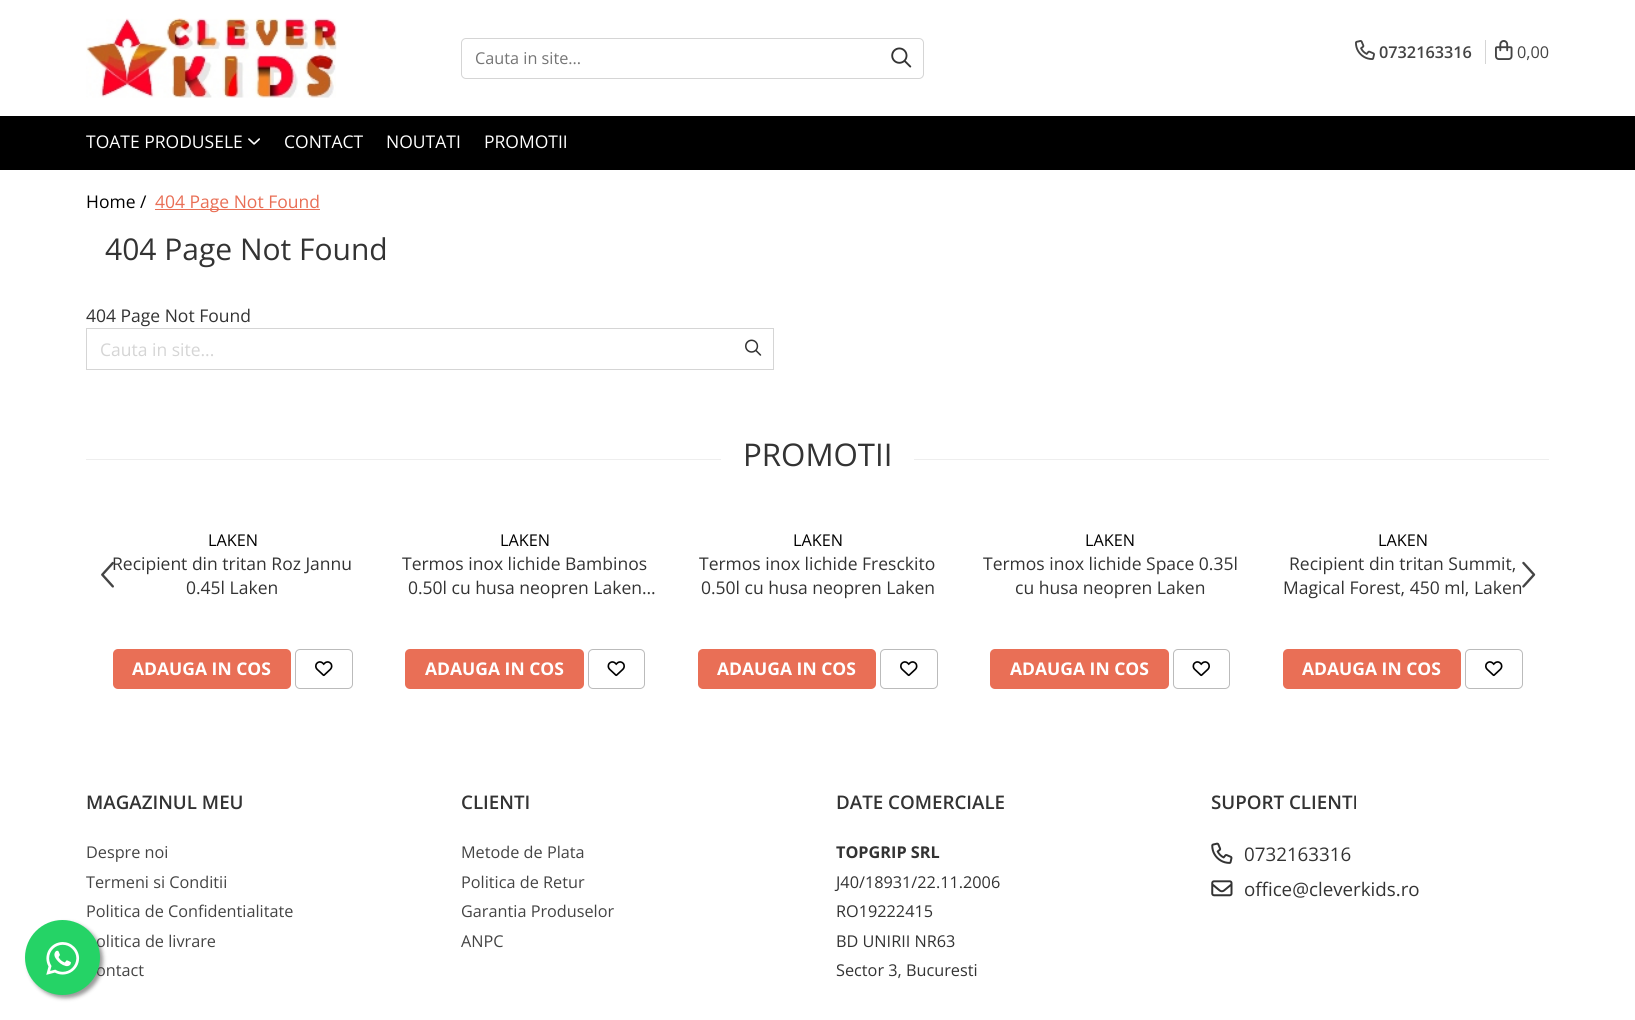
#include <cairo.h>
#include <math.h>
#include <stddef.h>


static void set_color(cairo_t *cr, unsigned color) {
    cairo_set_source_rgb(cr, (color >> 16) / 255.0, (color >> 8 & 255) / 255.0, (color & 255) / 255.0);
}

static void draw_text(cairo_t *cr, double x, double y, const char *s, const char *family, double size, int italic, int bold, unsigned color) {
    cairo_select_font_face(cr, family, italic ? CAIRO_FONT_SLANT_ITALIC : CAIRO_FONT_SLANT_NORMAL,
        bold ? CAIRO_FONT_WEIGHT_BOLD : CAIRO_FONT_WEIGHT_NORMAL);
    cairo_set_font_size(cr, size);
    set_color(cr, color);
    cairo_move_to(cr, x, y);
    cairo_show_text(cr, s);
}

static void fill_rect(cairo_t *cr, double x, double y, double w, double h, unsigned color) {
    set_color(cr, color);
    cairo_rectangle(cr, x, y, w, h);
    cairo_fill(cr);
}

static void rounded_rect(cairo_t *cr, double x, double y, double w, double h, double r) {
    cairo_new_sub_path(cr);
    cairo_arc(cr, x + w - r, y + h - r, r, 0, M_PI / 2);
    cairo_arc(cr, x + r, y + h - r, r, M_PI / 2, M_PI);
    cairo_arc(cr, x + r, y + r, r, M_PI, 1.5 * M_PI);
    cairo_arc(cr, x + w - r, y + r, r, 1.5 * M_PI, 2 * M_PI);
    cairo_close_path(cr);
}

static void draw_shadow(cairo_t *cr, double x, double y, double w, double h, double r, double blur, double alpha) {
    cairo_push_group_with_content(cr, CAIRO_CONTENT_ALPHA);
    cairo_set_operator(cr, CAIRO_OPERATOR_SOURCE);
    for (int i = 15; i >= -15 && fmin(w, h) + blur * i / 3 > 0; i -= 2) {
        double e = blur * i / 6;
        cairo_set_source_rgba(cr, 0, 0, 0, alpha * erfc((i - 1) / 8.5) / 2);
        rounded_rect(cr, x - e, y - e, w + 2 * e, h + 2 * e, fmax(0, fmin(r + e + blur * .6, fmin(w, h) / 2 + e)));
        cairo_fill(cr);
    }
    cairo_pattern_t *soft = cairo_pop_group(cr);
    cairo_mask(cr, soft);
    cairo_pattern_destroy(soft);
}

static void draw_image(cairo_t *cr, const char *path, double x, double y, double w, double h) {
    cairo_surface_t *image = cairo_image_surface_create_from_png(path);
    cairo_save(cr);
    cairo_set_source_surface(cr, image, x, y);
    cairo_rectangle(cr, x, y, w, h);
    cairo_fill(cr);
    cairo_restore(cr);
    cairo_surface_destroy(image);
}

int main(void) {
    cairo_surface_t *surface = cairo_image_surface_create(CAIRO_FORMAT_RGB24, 1635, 1020);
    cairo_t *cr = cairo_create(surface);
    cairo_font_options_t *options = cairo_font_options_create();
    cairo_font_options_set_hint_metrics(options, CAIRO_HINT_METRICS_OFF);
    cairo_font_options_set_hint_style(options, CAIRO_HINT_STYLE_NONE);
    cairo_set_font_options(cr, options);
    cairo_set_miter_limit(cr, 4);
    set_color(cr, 0xFFFFFF);
    cairo_paint(cr);
    set_color(cr, 0x999999);
    draw_shadow(cr, 28, 923, 75, 75, 37.5, 2, 1);
    draw_text(cr, 96, 947, "olitica de livrare", "Open Sans", 16.25, 0, 0, 0x444444);
    draw_text(cr, 96, 976, "ontact", "Open Sans", 16.25, 0, 0, 0x444444);
    set_color(cr, 0x25D366);
    cairo_new_path(cr);
    cairo_arc(cr, 62.5, 957.5, 37.5, 0, 2 * M_PI);
    cairo_fill(cr);
    draw_image(cr, "assets/img1.png", 46, 942, 34, 33);
    draw_image(cr, "assets/img2.png", 86, 18, 251, 80);
    rounded_rect(cr, 461.5, 38.5, 462, 40, 4.5);
    set_color(cr, 0xD5D5D5);
    cairo_set_line_width(cr, 1);
    cairo_stroke(cr);
    draw_text(cr, 475, 64, "Cauta in site...", "Open Sans", 16.25, 0, 0, 0x757575);
    draw_image(cr, "assets/img3.png", 891, 47, 21, 21);
    draw_image(cr, "assets/img4.png", 1355, 40, 20, 20);
    draw_text(cr, 1379, 58, "0732163316", "Open Sans SemiBold", 16.25, 0, 0, 0x444444);
    fill_rect(cr, 1485, 40, 1, 24, 0xD5D5D5);
    draw_image(cr, "assets/img5.png", 1495, 40, 18, 20);
    draw_text(cr, 1517, 58, "0,00", "Open Sans", 16.25, 0, 0, 0x444444);
    fill_rect(cr, 0, 116, 1635, 54, 0x000000);
    draw_text(cr, 86, 148, "TOATE PRODUSELE", "Open Sans", 17.5, 0, 0, 0xFFFFFF);
    draw_image(cr, "assets/img6.png", 248, 138, 12, 7);
    draw_text(cr, 284, 148, "CONTACT", "Open Sans", 17.5, 0, 0, 0xFFFFFF);
    draw_text(cr, 386, 148, "NOUTATI", "Open Sans", 17.5, 0, 0, 0xFFFFFF);
    draw_text(cr, 484, 148, "PROMOTII", "Open Sans", 17.5, 0, 0, 0xFFFFFF);
    draw_text(cr, 86, 208, "Home /", "Open Sans", 17.5, 0, 0, 0x000000);
    fill_rect(cr, 155, 209, 165, 1, 0xE96F56);
    draw_text(cr, 155, 208, "404 Page Not Found", "Open Sans", 17.5, 0, 0, 0xE96F56);
    draw_text(cr, 105, 260, "404 Page Not Found", "Open Sans", 30, 0, 0, 0x333333);
    draw_text(cr, 86, 322, "404 Page Not Found", "Open Sans", 17.5, 0, 0, 0x333333);
    cairo_rectangle(cr, 86.5, 328.5, 687, 41);
    set_color(cr, 0xD5D5D5);
    cairo_stroke(cr);
    draw_text(cr, 100, 356, "Cauta in site...", "Open Sans", 17.5, 0, 0, 0xD5D5D5);
    draw_image(cr, "assets/img7.png", 745, 339, 17, 17);
    fill_rect(cr, 86, 459, 1463, 1, 0xEEEEEE);
    fill_rect(cr, 721, 459, 193, 1, 0xFFFFFF);
    draw_text(cr, 743, 466, "PROMOTII", "Open Sans", 31.25, 0, 0, 0x333333);
    draw_text(cr, 208, 546, "LAKEN", "Open Sans", 16.25, 0, 0, 0x000000);
    draw_text(cr, 112, 570, "Recipient din tritan Roz Jannu", "Open Sans", 17.5, 0, 0, 0x333333);
    draw_text(cr, 186, 594, "0.45l Laken", "Open Sans", 17.5, 0, 0, 0x333333);
    set_color(cr, 0xE96F56);
    rounded_rect(cr, 113, 649, 178, 40, 5);
    cairo_fill(cr);
    draw_text(cr, 132, 675, "ADAUGA IN COS", "Open Sans", 17.5, 0, 1, 0xFFFFFF);
    rounded_rect(cr, 295.5, 649.5, 57, 39, 4.5);
    set_color(cr, 0xBBBBBB);
    cairo_stroke(cr);
    draw_image(cr, "assets/img8.png", 315, 661, 18, 16);
    draw_text(cr, 500, 546, "LAKEN", "Open Sans", 16.25, 0, 0, 0x000000);
    draw_text(cr, 402, 570, "Termos inox lichide Bambinos", "Open Sans", 17.5, 0, 0, 0x333333);
    draw_text(cr, 408, 594, "0.50l cu husa neopren Laken…", "Open Sans", 17.5, 0, 0, 0x333333);
    set_color(cr, 0xE96F56);
    rounded_rect(cr, 405, 649, 179, 40, 5);
    cairo_fill(cr);
    draw_text(cr, 425, 675, "ADAUGA IN COS", "Open Sans", 17.5, 0, 1, 0xFFFFFF);
    rounded_rect(cr, 588.5, 649.5, 56, 39, 4.5);
    set_color(cr, 0xBBBBBB);
    cairo_stroke(cr);
    draw_image(cr, "assets/img9.png", 607, 661, 18, 16);
    draw_text(cr, 793, 546, "LAKEN", "Open Sans", 16.25, 0, 0, 0x000000);
    draw_text(cr, 699, 570, "Termos inox lichide Fresckito", "Open Sans", 17.5, 0, 0, 0x333333);
    draw_text(cr, 701, 594, "0.50l cu husa neopren Laken", "Open Sans", 17.5, 0, 0, 0x333333);
    set_color(cr, 0xE96F56);
    rounded_rect(cr, 698, 649, 178, 40, 5);
    cairo_fill(cr);
    draw_text(cr, 717, 675, "ADAUGA IN COS", "Open Sans", 17.5, 0, 1, 0xFFFFFF);
    rounded_rect(cr, 880.5, 649.5, 57, 39, 4.5);
    set_color(cr, 0xBBBBBB);
    cairo_stroke(cr);
    draw_image(cr, "assets/img8.png", 900, 661, 18, 16);
    draw_text(cr, 1085, 546, "LAKEN", "Open Sans", 16.25, 0, 0, 0x000000);
    draw_text(cr, 983, 570, "Termos inox lichide Space 0.35l", "Open Sans", 17.5, 0, 0, 0x333333);
    draw_text(cr, 1015, 594, "cu husa neopren Laken", "Open Sans", 17.5, 0, 0, 0x333333);
    set_color(cr, 0xE96F56);
    rounded_rect(cr, 990, 649, 179, 40, 5);
    cairo_fill(cr);
    draw_text(cr, 1010, 675, "ADAUGA IN COS", "Open Sans", 17.5, 0, 1, 0xFFFFFF);
    rounded_rect(cr, 1173.5, 649.5, 56, 39, 4.5);
    set_color(cr, 0xBBBBBB);
    cairo_stroke(cr);
    draw_image(cr, "assets/img9.png", 1192, 661, 18, 16);
    draw_text(cr, 1378, 546, "LAKEN", "Open Sans", 16.25, 0, 0, 0x000000);
    draw_text(cr, 1289, 570, "Recipient din tritan Summit,", "Open Sans", 17.5, 0, 0, 0x333333);
    draw_text(cr, 1283, 594, "Magical Forest, 450 ml, Laken", "Open Sans", 17.5, 0, 0, 0x333333);
    set_color(cr, 0xE96F56);
    rounded_rect(cr, 1283, 649, 178, 40, 5);
    cairo_fill(cr);
    draw_text(cr, 1302, 675, "ADAUGA IN COS", "Open Sans", 17.5, 0, 1, 0xFFFFFF);
    rounded_rect(cr, 1465.5, 649.5, 57, 39, 4.5);
    set_color(cr, 0xBBBBBB);
    cairo_stroke(cr);
    draw_image(cr, "assets/img8.png", 1485, 661, 18, 16);
    draw_image(cr, "assets/img10.png", 101, 561, 13, 27);
    draw_image(cr, "assets/img11.png", 1522, 561, 14, 27);
    draw_text(cr, 86, 809, "MAGAZINUL MEU", "Open Sans SemiBold", 18.75, 0, 0, 0x333333);
    draw_text(cr, 86, 858, "Despre noi", "Open Sans", 16.25, 0, 0, 0x444444);
    draw_text(cr, 86, 888, "Termeni si Conditii", "Open Sans", 16.25, 0, 0, 0x444444);
    draw_text(cr, 86, 917, "Politica de Confidentialitate", "Open Sans", 16.25, 0, 0, 0x444444);
    draw_text(cr, 461, 809, "CLIENTI", "Open Sans SemiBold", 18.75, 0, 0, 0x333333);
    draw_text(cr, 461, 858, "Metode de Plata", "Open Sans", 16.25, 0, 0, 0x444444);
    draw_text(cr, 461, 888, "Politica de Retur", "Open Sans", 16.25, 0, 0, 0x444444);
    draw_text(cr, 461, 917, "Garantia Produselor", "Open Sans", 16.25, 0, 0, 0x444444);
    draw_text(cr, 461, 947, "ANPC", "Open Sans", 16.25, 0, 0, 0x444444);
    draw_text(cr, 836, 809, "DATE COMERCIALE", "Open Sans SemiBold", 18.75, 0, 0, 0x333333);
    draw_text(cr, 836, 858, "TOPGRIP SRL", "Open Sans", 16.25, 0, 1, 0x333333);
    draw_text(cr, 836, 888, "J40/18931/22.11.2006", "Open Sans", 16.25, 0, 0, 0x333333);
    draw_text(cr, 836, 917, "RO19222415", "Open Sans", 16.25, 0, 0, 0x333333);
    draw_text(cr, 836, 947, "BD UNIRII NR63", "Open Sans", 16.25, 0, 0, 0x333333);
    draw_text(cr, 836, 976, "Sector 3, Bucuresti", "Open Sans", 16.25, 0, 0, 0x333333);
    draw_text(cr, 1211, 809, "SUPORT CLIENTI", "Open Sans SemiBold", 18.75, 0, 0, 0x333333);
    draw_image(cr, "assets/img12.png", 1211, 842, 22, 22);
    draw_text(cr, 1244, 861, "0732163316", "Open Sans", 18.75, 0, 0, 0x333333);
    draw_image(cr, "assets/img13.png", 1211, 880, 22, 17);
    draw_text(cr, 1244, 896, "office@cleverkids.ro", "Open Sans", 18.75, 0, 0, 0x333333);
    cairo_surface_write_to_png(surface, "output.png");
    cairo_font_options_destroy(options);
    cairo_destroy(cr);
    cairo_surface_destroy(surface);
    return 0;
}
